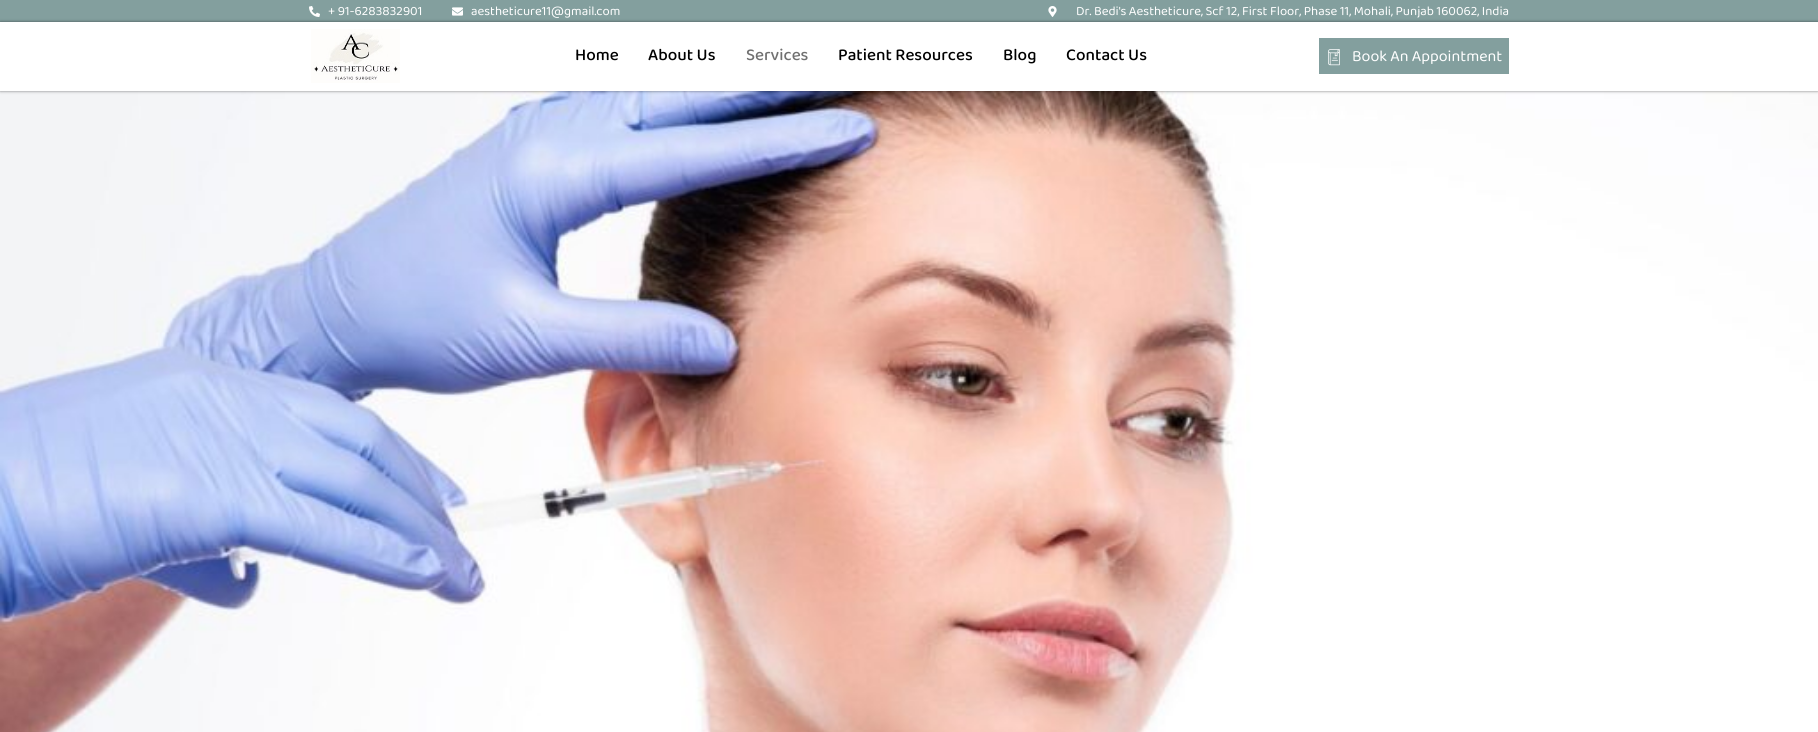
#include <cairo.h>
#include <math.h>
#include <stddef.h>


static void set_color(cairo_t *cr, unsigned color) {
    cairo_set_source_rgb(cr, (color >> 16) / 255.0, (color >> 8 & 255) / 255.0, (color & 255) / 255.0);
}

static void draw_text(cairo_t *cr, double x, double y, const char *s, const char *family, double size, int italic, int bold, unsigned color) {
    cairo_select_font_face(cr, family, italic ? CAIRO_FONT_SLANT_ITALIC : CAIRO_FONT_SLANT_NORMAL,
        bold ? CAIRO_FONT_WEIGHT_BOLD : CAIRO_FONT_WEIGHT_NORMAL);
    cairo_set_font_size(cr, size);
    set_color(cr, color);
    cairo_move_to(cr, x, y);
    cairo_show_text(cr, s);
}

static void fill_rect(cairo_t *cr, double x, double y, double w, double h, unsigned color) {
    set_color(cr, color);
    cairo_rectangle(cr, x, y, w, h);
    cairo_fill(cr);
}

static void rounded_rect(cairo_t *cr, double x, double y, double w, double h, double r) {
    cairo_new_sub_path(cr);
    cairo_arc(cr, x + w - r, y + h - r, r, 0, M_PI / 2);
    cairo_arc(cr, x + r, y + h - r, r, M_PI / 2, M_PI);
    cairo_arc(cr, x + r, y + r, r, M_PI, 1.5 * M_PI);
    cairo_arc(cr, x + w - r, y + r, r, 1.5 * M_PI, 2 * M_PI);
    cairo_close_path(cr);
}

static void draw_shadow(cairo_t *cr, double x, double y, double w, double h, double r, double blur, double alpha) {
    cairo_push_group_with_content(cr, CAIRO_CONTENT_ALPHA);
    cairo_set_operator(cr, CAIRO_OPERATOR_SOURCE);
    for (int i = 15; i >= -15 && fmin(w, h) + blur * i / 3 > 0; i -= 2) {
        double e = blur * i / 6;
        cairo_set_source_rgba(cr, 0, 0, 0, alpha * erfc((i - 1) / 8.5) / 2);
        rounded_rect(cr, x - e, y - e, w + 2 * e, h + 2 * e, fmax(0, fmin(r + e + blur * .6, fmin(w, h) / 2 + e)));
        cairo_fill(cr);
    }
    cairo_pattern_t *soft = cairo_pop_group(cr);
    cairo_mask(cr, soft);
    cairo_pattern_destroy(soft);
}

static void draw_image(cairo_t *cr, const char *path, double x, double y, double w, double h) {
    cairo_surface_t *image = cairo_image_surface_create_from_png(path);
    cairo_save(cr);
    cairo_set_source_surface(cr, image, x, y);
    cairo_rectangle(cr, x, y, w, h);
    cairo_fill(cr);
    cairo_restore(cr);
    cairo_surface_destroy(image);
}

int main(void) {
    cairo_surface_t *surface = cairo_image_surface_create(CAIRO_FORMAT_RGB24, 1818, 732);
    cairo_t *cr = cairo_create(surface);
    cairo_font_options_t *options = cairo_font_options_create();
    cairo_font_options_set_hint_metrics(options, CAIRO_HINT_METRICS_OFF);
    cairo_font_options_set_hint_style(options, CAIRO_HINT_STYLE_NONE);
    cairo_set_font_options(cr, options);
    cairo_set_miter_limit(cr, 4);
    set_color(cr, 0xFFFFFF);
    cairo_paint(cr);
    fill_rect(cr, 0, 0, 1818, 22, 0x839F9E);
    draw_image(cr, "assets/img1.png", 309, 6, 11, 11);
    draw_text(cr, 328, 15, "+ 91-6283832901", "Baloo 2", 13, 0, 0, 0xFFFFFF);
    draw_image(cr, "assets/img2.png", 452, 7, 11, 9);
    draw_text(cr, 471, 15, "aestheticure11@gmail.com", "Baloo 2", 13, 0, 0, 0xFFFFFF);
    draw_image(cr, "assets/img3.png", 1048, 6, 9, 11);
    draw_text(cr, 1076, 15, "Dr. Bedi's Aestheticure, Scf 12, First Floor, Phase 11, Mohali, Punjab 160062, India", "Baloo Bhai 2", 13, 0, 0, 0xFFFFFF);
    draw_image(cr, "assets/img6.png", 0, 91, 1818, 641);
    cairo_save(cr);
    cairo_set_fill_rule(cr, CAIRO_FILL_RULE_EVEN_ODD);
    cairo_new_path(cr);
    cairo_move_to(cr, 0, 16);
    cairo_line_to(cr, 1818, 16);
    cairo_line_to(cr, 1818, 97);
    cairo_line_to(cr, 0, 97);
    cairo_close_path(cr);
    cairo_move_to(cr, 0, 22);
    cairo_line_to(cr, 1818, 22);
    cairo_line_to(cr, 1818, 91);
    cairo_line_to(cr, 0, 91);
    cairo_close_path(cr);
    cairo_clip(cr);
    set_color(cr, 0x000000);
    draw_shadow(cr, 0, 22, 1818, 69, 0, 1.5, 0.5);
    cairo_restore(cr);
    draw_image(cr, "assets/img4.png", 311, 29, 89, 54);
    draw_text(cr, 575, 60, "Home", "Baloo Bhai 2 Medium", 17, 0, 0, 0x000000);
    draw_text(cr, 648, 60, "About Us", "Baloo Bhai 2 Medium", 17, 0, 0, 0x000000);
    draw_text(cr, 746, 60, "Services", "Baloo Bhai 2 Medium", 17, 0, 0, 0x707070);
    draw_text(cr, 838, 60, "Patient Resources", "Baloo Bhai 2 Medium", 17, 0, 0, 0x000000);
    draw_text(cr, 1003, 60, "Blog", "Baloo Bhai 2 Medium", 17, 0, 0, 0x000000);
    draw_text(cr, 1066, 60, "Contact Us", "Baloo Bhai 2 Medium", 17, 0, 0, 0x000000);
    fill_rect(cr, 1319, 38, 190, 36, 0x839F9E);
    draw_image(cr, "assets/img5.png", 1328, 49, 12, 17);
    draw_text(cr, 1352, 61, "Book An Appointment", "Baloo Bhai 2", 16, 0, 0, 0xFFFFFF);
    cairo_surface_write_to_png(surface, "output.png");
    cairo_font_options_destroy(options);
    cairo_destroy(cr);
    cairo_surface_destroy(surface);
    return 0;
}
